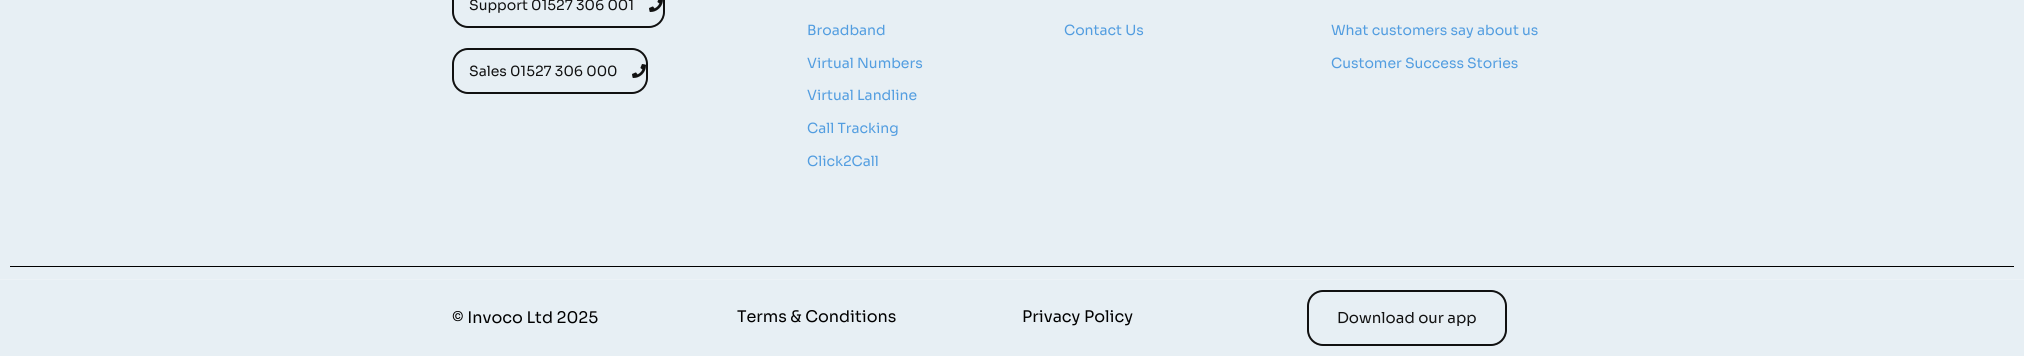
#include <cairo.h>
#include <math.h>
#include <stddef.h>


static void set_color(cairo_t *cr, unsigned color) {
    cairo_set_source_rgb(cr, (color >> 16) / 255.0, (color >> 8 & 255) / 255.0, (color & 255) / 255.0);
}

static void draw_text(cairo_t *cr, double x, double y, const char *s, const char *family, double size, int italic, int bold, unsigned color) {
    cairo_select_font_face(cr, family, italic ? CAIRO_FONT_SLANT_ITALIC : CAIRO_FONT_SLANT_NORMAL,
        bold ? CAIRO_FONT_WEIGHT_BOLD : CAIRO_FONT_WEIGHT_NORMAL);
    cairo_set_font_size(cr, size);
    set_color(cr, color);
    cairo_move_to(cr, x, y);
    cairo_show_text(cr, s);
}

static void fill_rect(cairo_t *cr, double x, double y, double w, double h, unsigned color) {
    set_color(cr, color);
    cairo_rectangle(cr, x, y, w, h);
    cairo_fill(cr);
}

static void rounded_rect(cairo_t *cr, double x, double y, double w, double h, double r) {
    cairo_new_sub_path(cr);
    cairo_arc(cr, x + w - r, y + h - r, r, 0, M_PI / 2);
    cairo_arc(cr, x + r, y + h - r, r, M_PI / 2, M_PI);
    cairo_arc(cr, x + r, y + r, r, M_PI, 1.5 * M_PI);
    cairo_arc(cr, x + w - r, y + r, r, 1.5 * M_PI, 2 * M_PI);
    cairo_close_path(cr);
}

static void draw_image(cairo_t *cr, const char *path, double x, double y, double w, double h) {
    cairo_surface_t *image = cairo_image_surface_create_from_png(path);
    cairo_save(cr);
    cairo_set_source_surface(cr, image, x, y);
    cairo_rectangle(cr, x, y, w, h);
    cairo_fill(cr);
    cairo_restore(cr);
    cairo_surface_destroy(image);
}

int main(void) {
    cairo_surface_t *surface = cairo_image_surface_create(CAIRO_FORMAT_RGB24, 2024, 356);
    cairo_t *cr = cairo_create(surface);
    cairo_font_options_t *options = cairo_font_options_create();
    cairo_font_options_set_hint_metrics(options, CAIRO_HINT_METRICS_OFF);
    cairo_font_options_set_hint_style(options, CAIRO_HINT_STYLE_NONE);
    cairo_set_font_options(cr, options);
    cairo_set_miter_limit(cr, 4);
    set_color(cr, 0xE7EFF4);
    cairo_paint(cr);
    rounded_rect(cr, 453, -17, 211, 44, 15);
    set_color(cr, 0x111111);
    cairo_stroke(cr);
    draw_text(cr, 469, 10, "Support 01527 306 001", "Sora", 14, 0, 0, 0x111111);
    draw_image(cr, "assets/img1.png", 649, 0, 14, 12);
    rounded_rect(cr, 453, 49, 194, 44, 15);
    cairo_stroke(cr);
    draw_text(cr, 469, 76, "Sales 01527 306 000", "Sora", 14, 0, 0, 0x111111);
    draw_image(cr, "assets/img2.png", 632, 64, 14, 14);
    draw_text(cr, 807, 35, "Broadband", "Sora", 14, 0, 0, 0x529DE0);
    draw_text(cr, 807, 68, "Virtual Numbers", "Sora", 14, 0, 0, 0x529DE0);
    draw_text(cr, 807, 100, "Virtual Landline", "Sora", 14, 0, 0, 0x529DE0);
    draw_text(cr, 807, 133, "Call Tracking", "Sora", 14, 0, 0, 0x529DE0);
    draw_text(cr, 807, 166, "Click2Call", "Sora", 14, 0, 0, 0x529DE0);
    draw_text(cr, 1064, 35, "Contact Us", "Sora", 14, 0, 0, 0x529DE0);
    draw_text(cr, 1331, 35, "What customers say about us", "Sora", 14, 0, 0, 0x529DE0);
    draw_text(cr, 1331, 68, "Customer Success Stories", "Sora", 14, 0, 0, 0x529DE0);
    fill_rect(cr, 10, 266, 2004, 1, 0x000000);
    fill_rect(cr, 0, 279, 2024, 1, 0xECF2F6);
    draw_text(cr, 452, 323, "© Invoco Ltd 2025", "Sora", 16, 0, 0, 0x000000);
    draw_text(cr, 737, 322, "Terms & Conditions", "Sora", 16, 0, 0, 0x000000);
    draw_text(cr, 1022, 322, "Privacy Policy", "Sora", 16, 0, 0, 0x000000);
    rounded_rect(cr, 1308, 291, 198, 54, 15);
    set_color(cr, 0x111111);
    cairo_stroke(cr);
    draw_text(cr, 1337, 323, "Download our app", "Sora", 15, 0, 0, 0x111111);
    cairo_surface_write_to_png(surface, "output.png");
    cairo_font_options_destroy(options);
    cairo_destroy(cr);
    cairo_surface_destroy(surface);
    return 0;
}
